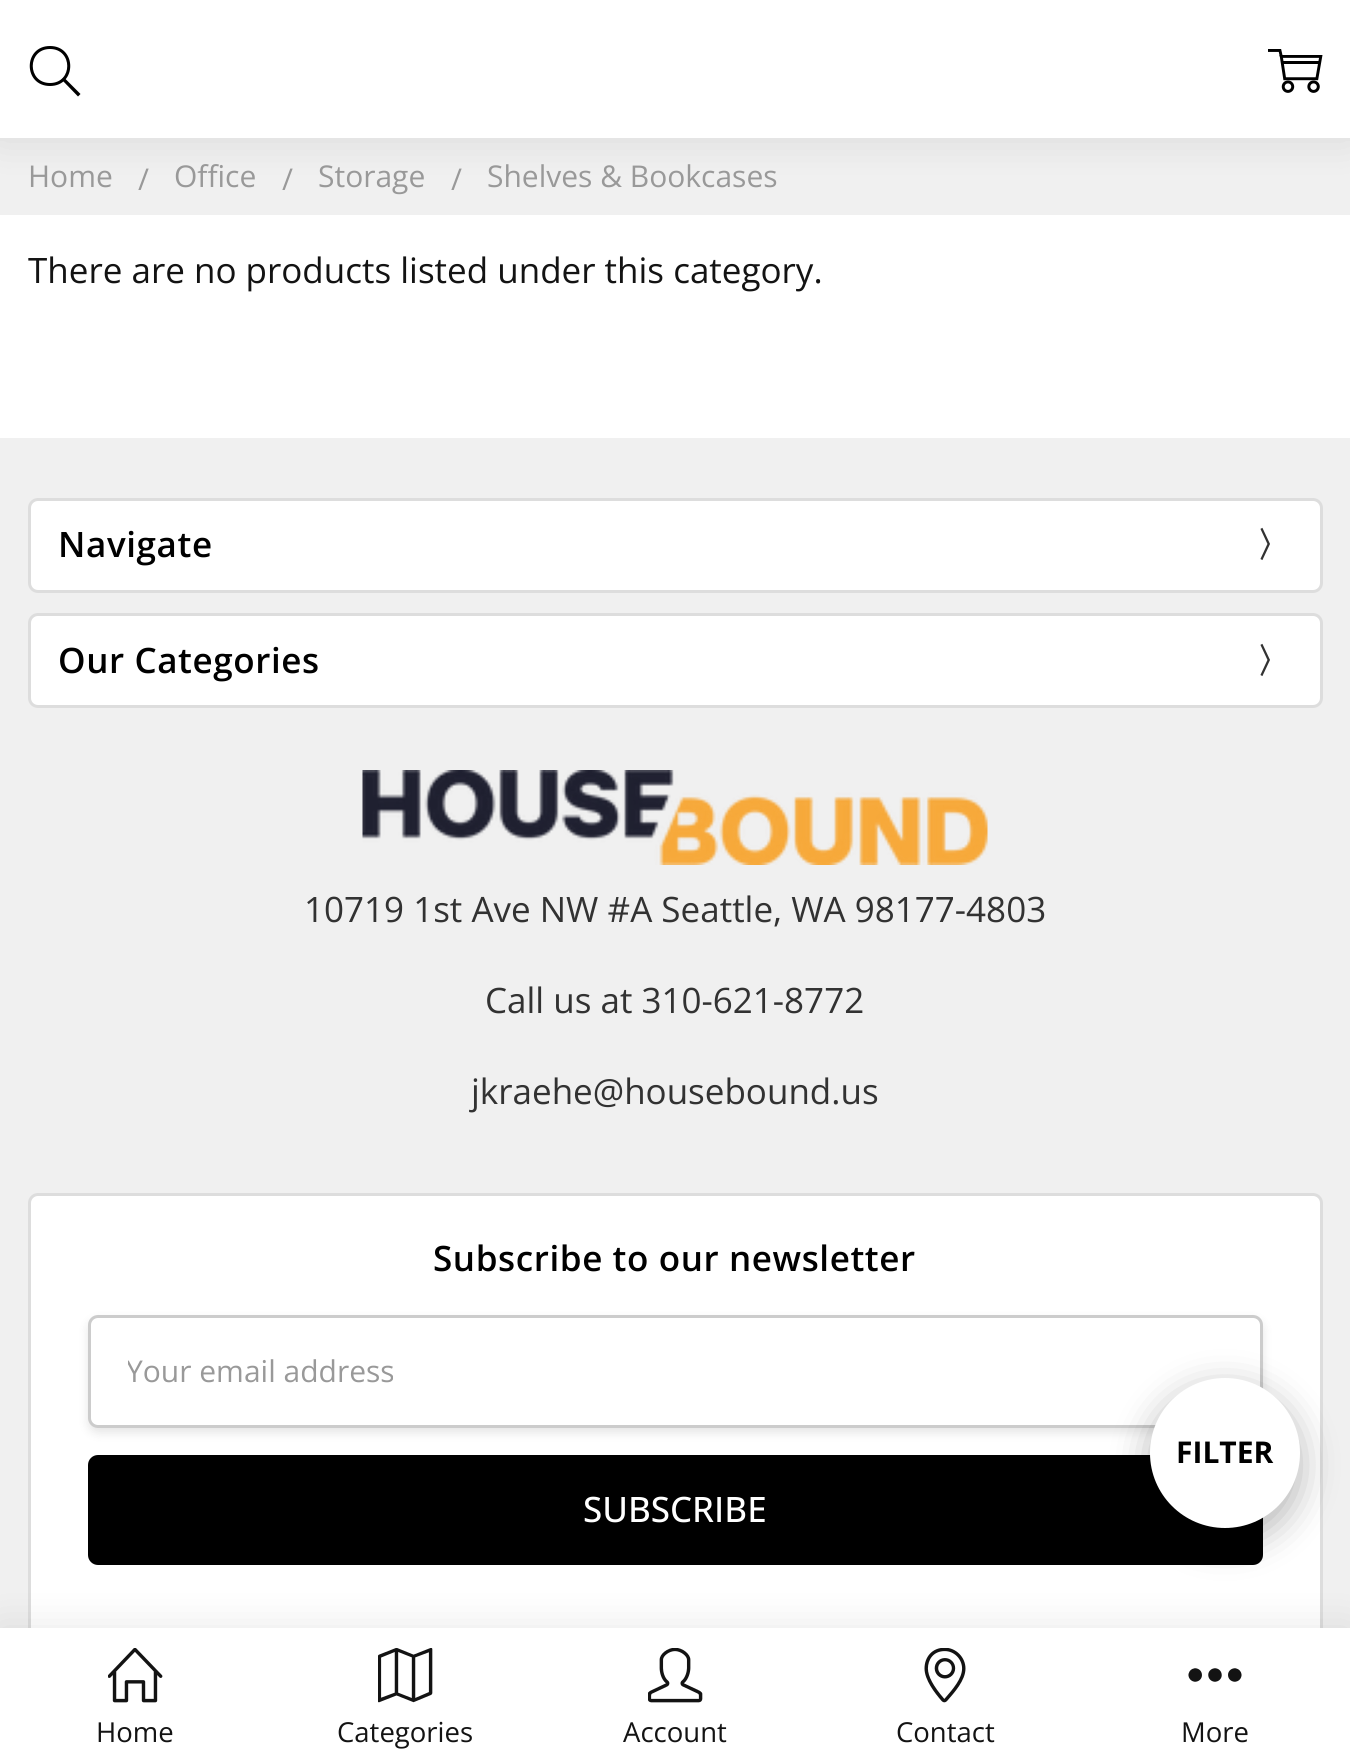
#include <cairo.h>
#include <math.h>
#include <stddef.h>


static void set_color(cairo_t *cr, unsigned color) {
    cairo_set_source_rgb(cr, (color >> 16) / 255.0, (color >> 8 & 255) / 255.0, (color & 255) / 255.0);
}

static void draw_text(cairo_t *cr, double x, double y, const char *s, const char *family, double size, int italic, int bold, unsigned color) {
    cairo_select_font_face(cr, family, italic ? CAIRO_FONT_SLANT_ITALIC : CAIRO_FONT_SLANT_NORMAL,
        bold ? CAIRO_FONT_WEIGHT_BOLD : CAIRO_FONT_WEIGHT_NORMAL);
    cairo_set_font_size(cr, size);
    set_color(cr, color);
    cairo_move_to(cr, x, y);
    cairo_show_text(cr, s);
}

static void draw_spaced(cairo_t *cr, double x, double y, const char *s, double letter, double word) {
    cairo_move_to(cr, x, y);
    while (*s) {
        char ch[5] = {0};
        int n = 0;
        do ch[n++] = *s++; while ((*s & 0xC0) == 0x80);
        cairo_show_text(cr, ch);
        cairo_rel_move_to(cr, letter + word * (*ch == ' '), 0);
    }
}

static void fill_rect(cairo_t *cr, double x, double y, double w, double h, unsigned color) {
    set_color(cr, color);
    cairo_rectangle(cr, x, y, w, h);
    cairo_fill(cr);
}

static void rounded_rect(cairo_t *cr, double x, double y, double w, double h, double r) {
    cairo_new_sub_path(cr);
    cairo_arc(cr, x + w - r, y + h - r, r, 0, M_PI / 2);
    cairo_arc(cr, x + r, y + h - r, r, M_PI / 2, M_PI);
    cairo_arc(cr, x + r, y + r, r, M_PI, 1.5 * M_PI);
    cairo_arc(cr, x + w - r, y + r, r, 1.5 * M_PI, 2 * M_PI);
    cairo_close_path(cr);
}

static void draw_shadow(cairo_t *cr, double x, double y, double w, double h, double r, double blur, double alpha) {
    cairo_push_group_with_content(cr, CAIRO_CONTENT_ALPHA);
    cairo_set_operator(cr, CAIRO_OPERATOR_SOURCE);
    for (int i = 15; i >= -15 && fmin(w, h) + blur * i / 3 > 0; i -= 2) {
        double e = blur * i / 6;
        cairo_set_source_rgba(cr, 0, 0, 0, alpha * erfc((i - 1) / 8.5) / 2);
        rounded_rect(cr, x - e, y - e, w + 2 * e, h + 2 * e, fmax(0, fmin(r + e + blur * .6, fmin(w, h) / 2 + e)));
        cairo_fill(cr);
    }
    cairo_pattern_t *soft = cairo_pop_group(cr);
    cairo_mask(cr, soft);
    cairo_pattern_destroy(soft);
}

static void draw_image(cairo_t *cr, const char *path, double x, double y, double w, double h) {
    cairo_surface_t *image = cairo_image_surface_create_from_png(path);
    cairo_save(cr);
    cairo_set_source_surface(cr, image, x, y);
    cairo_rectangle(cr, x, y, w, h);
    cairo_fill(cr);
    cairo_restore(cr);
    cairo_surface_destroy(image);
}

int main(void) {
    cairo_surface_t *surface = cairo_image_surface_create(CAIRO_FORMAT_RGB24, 1350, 1763);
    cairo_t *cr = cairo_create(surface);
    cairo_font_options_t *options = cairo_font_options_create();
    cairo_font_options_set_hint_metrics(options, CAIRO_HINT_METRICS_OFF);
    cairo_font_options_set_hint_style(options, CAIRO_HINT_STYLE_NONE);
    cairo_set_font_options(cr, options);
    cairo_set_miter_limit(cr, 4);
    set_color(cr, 0xFFFFFF);
    cairo_paint(cr);
    fill_rect(cr, 0, 141, 1350, 74, 0xF0F0F0);
    set_color(cr, 0x000000);
    draw_shadow(cr, 0, 0, 1350, 140, 0, 19, 0.1);
    fill_rect(cr, 0, 0, 1350, 138, 0xFFFFFF);
    fill_rect(cr, 0, 138, 1350, 3, 0xE5E5E5);
    set_color(cr, 0x000000);
    cairo_new_path(cr);
    cairo_move_to(cr, 50, 86);
    cairo_curve_to(cr, 23, 86, 23, 46, 50, 46);
    cairo_curve_to(cr, 77, 46, 77, 86, 50, 86);
    cairo_close_path(cr);
    cairo_move_to(cr, 50, 49);
    cairo_curve_to(cr, 27, 49, 27, 83, 50, 83);
    cairo_curve_to(cr, 73, 83, 73, 49, 50, 49);
    cairo_close_path(cr);
    cairo_fill(cr);
    cairo_new_path(cr);
    cairo_move_to(cr, 64, 77.5);
    cairo_line_to(cr, 80.5, 94);
    cairo_line_to(cr, 78, 96.5);
    cairo_line_to(cr, 61.5, 79.5);
    cairo_close_path(cr);
    cairo_fill(cr);
    draw_image(cr, "assets/img1.png", 1268, 49, 55, 44);
    draw_text(cr, 28, 187, "Home", "Open Sans", 30, 0, 0, 0x999999);
    draw_text(cr, 138, 190, "/", "Open Sans", 30, 0, 0, 0x999999);
    draw_text(cr, 174, 187, "Office", "Open Sans", 30, 0, 0, 0x999999);
    draw_text(cr, 282, 190, "/", "Open Sans", 30, 0, 0, 0x999999);
    draw_text(cr, 318, 187, "Storage", "Open Sans", 30, 0, 0, 0x999999);
    draw_text(cr, 451, 190, "/", "Open Sans", 30, 0, 0, 0x999999);
    draw_text(cr, 487, 187, "Shelves & Bookcases", "Open Sans", 30, 0, 0, 0x999999);
    draw_text(cr, 28, 283, "There are no products listed under this category.", "Open Sans", 35, 0, 0, 0x131313);
    fill_rect(cr, 0, 438, 1350, 1190, 0xF0F0F0);
    set_color(cr, 0xFFFFFF);
    rounded_rect(cr, 29.5, 1194.5, 1292, 492, 8.5);
    cairo_fill_preserve(cr);
    set_color(cr, 0xDDDDDD);
    cairo_set_line_width(cr, 3);
    cairo_stroke(cr);
    set_color(cr, 0x000000);
    draw_shadow(cr, 88, 1320, 1175, 113, 10, 5, 0.1);
    set_color(cr, 0xFFFFFF);
    rounded_rect(cr, 89.5, 1316.5, 1172, 110, 8.5);
    cairo_fill_preserve(cr);
    set_color(cr, 0xCCCCCC);
    cairo_stroke(cr);
    set_color(cr, 0x000000);
    rounded_rect(cr, 89.5, 1456.5, 1172, 107, 8.5);
    cairo_fill_preserve(cr);
    cairo_stroke(cr);
    set_color(cr, 0x000000);
    draw_shadow(cr, 1150, 1390, 150, 150, 75, 19, 0.3);
    set_color(cr, 0xFFFFFF);
    cairo_arc(cr, 1225, 1453, 75, 0, 2 * M_PI);
    cairo_fill(cr);
    draw_text(cr, 1176, 1463, "FILTER", "Open Sans", 30, 0, 1, 0x000000);
    set_color(cr, 0xFFFFFF);
    rounded_rect(cr, 29.5, 499.5, 1292, 92, 8.5);
    cairo_fill_preserve(cr);
    set_color(cr, 0xDDDDDD);
    cairo_stroke(cr);
    cairo_select_font_face(cr, "Open Sans SemiBold", CAIRO_FONT_SLANT_NORMAL, CAIRO_FONT_WEIGHT_NORMAL);
    cairo_set_font_size(cr, 35);
    set_color(cr, 0x000000);
    draw_spaced(cr, 58, 557, "Navigate", 0.6, 0);
    cairo_select_font_face(cr, "WenQuanYi Zen Hei", CAIRO_FONT_SLANT_NORMAL, CAIRO_FONT_WEIGHT_BOLD);
    set_color(cr, 0x323232);
    draw_spaced(cr, 1256, 557, "〉", 0.6, 0);
    set_color(cr, 0xFFFFFF);
    rounded_rect(cr, 29.5, 614.5, 1292, 92, 8.5);
    cairo_fill_preserve(cr);
    set_color(cr, 0xDDDDDD);
    cairo_stroke(cr);
    cairo_select_font_face(cr, "Open Sans SemiBold", CAIRO_FONT_SLANT_NORMAL, CAIRO_FONT_WEIGHT_NORMAL);
    set_color(cr, 0x000000);
    draw_spaced(cr, 58, 673, "Our Categories", 0.6, 0);
    cairo_select_font_face(cr, "WenQuanYi Zen Hei", CAIRO_FONT_SLANT_NORMAL, CAIRO_FONT_WEIGHT_BOLD);
    set_color(cr, 0x323232);
    draw_spaced(cr, 1256, 673, "〉", 0.6, 0);
    draw_image(cr, "assets/img2.png", 362, 770, 626, 95);
    draw_text(cr, 304, 922, "10719 1st Ave NW #A Seattle, WA 98177-4803", "Open Sans", 35, 0, 0, 0x323232);
    draw_text(cr, 485, 1013, "Call us at 310-621-8772", "Open Sans", 35, 0, 0, 0x323232);
    draw_text(cr, 471, 1104, "jkraehe@housebound.us", "Open Sans", 35, 0, 0, 0x323232);
    cairo_select_font_face(cr, "Open Sans SemiBold", CAIRO_FONT_SLANT_NORMAL, CAIRO_FONT_WEIGHT_NORMAL);
    set_color(cr, 0x000000);
    draw_spaced(cr, 433, 1271, "Subscribe to our newsletter", 0.6, 0);
    cairo_save(cr);
    cairo_rectangle(cr, 128, 1350, 1095, 43);
    cairo_clip(cr);
    draw_text(cr, 126, 1382, "Your email address", "Open Sans", 30, 0, 0, 0x999999);
    cairo_restore(cr);
    draw_text(cr, 583, 1522, "SUBSCRIBE", "Open Sans Medium", 35, 0, 0, 0xFFFFFF);
    set_color(cr, 0x000000);
    draw_shadow(cr, 0, 1628, 1350, 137, 0, 19, 0.1);
    fill_rect(cr, 0, 1628, 1350, 135, 0xFFFFFF);
    draw_image(cr, "assets/img3.png", 108, 1648, 55, 55);
    draw_text(cr, 96, 1742, "Home", "Open Sans", 27.5, 0, 0, 0x131313);
    draw_image(cr, "assets/img4.png", 378, 1648, 55, 55);
    draw_text(cr, 337, 1742, "Categories", "Open Sans", 27.5, 0, 0, 0x131313);
    draw_image(cr, "assets/img5.png", 648, 1648, 55, 55);
    draw_text(cr, 623, 1742, "Account", "Open Sans", 27.5, 0, 0, 0x131313);
    draw_image(cr, "assets/img6.png", 924, 1648, 42, 55);
    draw_text(cr, 896, 1742, "Contact", "Open Sans", 27.5, 0, 0, 0x131313);
    draw_image(cr, "assets/img7.png", 1188, 1668, 54, 14);
    draw_text(cr, 1181, 1742, "More", "Open Sans", 27.5, 0, 0, 0x131313);
    cairo_surface_write_to_png(surface, "output.png");
    cairo_font_options_destroy(options);
    cairo_destroy(cr);
    cairo_surface_destroy(surface);
    return 0;
}
